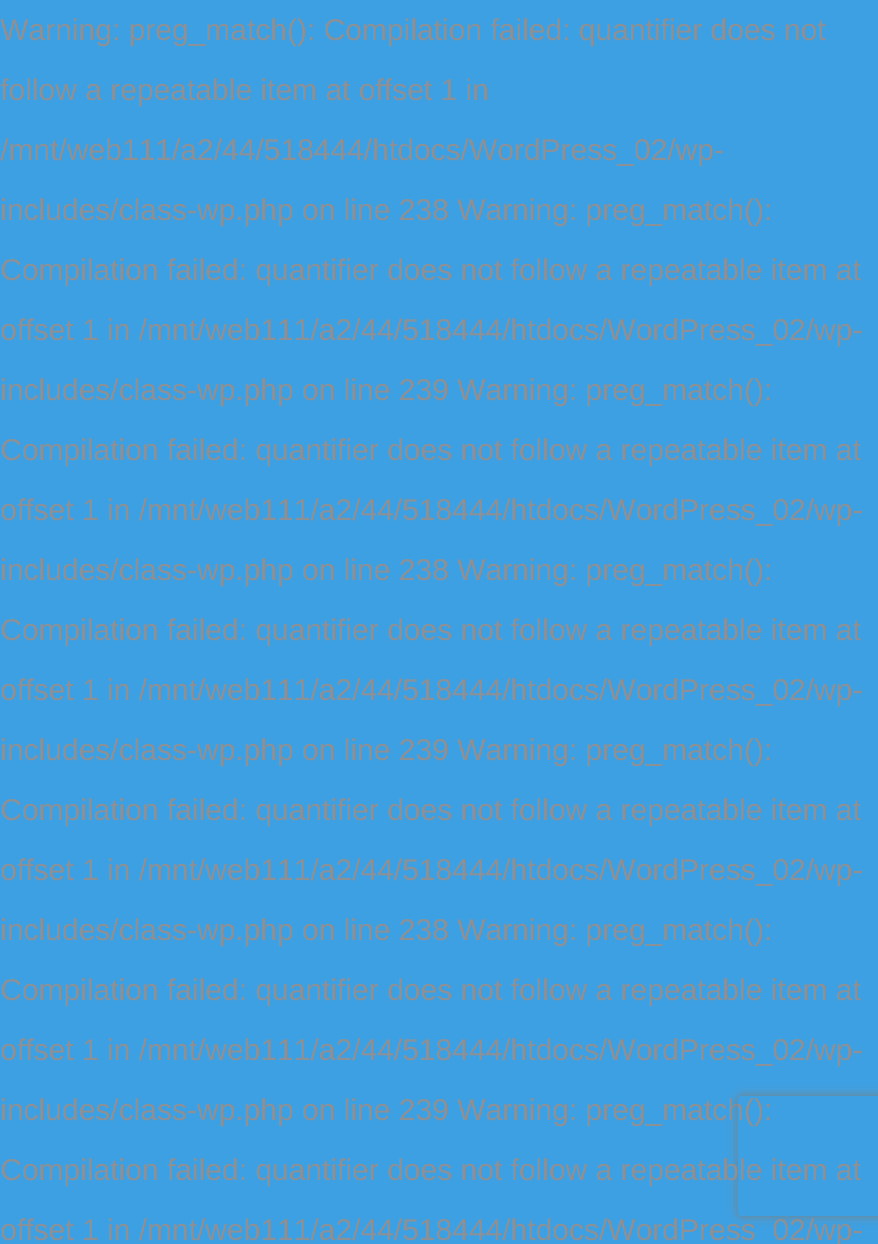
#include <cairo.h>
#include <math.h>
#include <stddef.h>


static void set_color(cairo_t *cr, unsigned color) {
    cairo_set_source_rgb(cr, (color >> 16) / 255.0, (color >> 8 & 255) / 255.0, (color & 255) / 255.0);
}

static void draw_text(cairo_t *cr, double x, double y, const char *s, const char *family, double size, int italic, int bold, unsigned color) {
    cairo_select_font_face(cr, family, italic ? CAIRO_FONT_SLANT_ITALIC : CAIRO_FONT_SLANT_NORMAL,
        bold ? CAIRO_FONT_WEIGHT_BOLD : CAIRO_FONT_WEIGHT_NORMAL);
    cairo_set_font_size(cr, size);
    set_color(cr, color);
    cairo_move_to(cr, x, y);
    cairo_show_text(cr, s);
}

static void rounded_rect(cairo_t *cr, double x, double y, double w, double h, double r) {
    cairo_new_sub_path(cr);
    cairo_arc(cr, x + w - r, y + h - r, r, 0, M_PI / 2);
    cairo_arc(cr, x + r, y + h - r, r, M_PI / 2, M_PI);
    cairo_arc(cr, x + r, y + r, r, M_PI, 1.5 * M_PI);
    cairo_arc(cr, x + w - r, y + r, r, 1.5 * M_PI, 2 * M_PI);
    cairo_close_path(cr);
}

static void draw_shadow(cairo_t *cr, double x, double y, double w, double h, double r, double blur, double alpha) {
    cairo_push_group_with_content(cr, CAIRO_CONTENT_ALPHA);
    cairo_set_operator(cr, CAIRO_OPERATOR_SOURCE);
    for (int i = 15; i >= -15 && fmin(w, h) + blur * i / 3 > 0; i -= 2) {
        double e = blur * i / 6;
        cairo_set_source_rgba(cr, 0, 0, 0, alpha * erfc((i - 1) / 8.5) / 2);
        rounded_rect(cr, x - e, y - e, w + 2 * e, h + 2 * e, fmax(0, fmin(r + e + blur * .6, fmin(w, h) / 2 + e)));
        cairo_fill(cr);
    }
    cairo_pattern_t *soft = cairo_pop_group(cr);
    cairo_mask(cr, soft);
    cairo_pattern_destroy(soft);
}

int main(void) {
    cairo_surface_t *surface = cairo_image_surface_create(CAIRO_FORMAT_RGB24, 878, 1244);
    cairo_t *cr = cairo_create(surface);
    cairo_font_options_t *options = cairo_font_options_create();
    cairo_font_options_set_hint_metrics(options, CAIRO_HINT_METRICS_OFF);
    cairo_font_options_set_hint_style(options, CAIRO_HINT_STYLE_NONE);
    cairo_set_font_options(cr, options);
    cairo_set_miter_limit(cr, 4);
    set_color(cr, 0x3DA0E2);
    cairo_paint(cr);
    draw_text(cr, 0, 40, "Warning: preg_match(): Compilation failed: quantifier does not", "Liberation Sans", 30, 0, 0, 0x8D9095);
    draw_text(cr, 0, 100, "follow a repeatable item at offset 1 in", "Liberation Sans", 30, 0, 0, 0x8D9095);
    draw_text(cr, 0, 160, "/mnt/web111/a2/44/518444/htdocs/WordPress_02/wp-", "Liberation Sans", 30, 0, 0, 0x8D9095);
    draw_text(cr, 0, 220, "includes/class-wp.php on line 238 Warning: preg_match():", "Liberation Sans", 30, 0, 0, 0x8D9095);
    draw_text(cr, 0, 280, "Compilation failed: quantifier does not follow a repeatable item at", "Liberation Sans", 30, 0, 0, 0x8D9095);
    draw_text(cr, 0, 340, "offset 1 in /mnt/web111/a2/44/518444/htdocs/WordPress_02/wp-", "Liberation Sans", 30, 0, 0, 0x8D9095);
    draw_text(cr, 0, 400, "includes/class-wp.php on line 239 Warning: preg_match():", "Liberation Sans", 30, 0, 0, 0x8D9095);
    draw_text(cr, 0, 460, "Compilation failed: quantifier does not follow a repeatable item at", "Liberation Sans", 30, 0, 0, 0x8D9095);
    draw_text(cr, 0, 520, "offset 1 in /mnt/web111/a2/44/518444/htdocs/WordPress_02/wp-", "Liberation Sans", 30, 0, 0, 0x8D9095);
    draw_text(cr, 0, 580, "includes/class-wp.php on line 238 Warning: preg_match():", "Liberation Sans", 30, 0, 0, 0x8D9095);
    draw_text(cr, 0, 640, "Compilation failed: quantifier does not follow a repeatable item at", "Liberation Sans", 30, 0, 0, 0x8D9095);
    draw_text(cr, 0, 700, "offset 1 in /mnt/web111/a2/44/518444/htdocs/WordPress_02/wp-", "Liberation Sans", 30, 0, 0, 0x8D9095);
    draw_text(cr, 0, 760, "includes/class-wp.php on line 239 Warning: preg_match():", "Liberation Sans", 30, 0, 0, 0x8D9095);
    draw_text(cr, 0, 820, "Compilation failed: quantifier does not follow a repeatable item at", "Liberation Sans", 30, 0, 0, 0x8D9095);
    draw_text(cr, 0, 880, "offset 1 in /mnt/web111/a2/44/518444/htdocs/WordPress_02/wp-", "Liberation Sans", 30, 0, 0, 0x8D9095);
    draw_text(cr, 0, 940, "includes/class-wp.php on line 238 Warning: preg_match():", "Liberation Sans", 30, 0, 0, 0x8D9095);
    draw_text(cr, 0, 1000, "Compilation failed: quantifier does not follow a repeatable item at", "Liberation Sans", 30, 0, 0, 0x8D9095);
    draw_text(cr, 0, 1060, "offset 1 in /mnt/web111/a2/44/518444/htdocs/WordPress_02/wp-", "Liberation Sans", 30, 0, 0, 0x8D9095);
    draw_text(cr, 0, 1120, "includes/class-wp.php on line 239 Warning: preg_match():", "Liberation Sans", 30, 0, 0, 0x8D9095);
    cairo_save(cr);
    cairo_set_fill_rule(cr, CAIRO_FILL_RULE_EVEN_ODD);
    cairo_new_path(cr);
    cairo_move_to(cr, 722, 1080);
    cairo_line_to(cr, 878, 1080);
    cairo_line_to(cr, 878, 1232);
    cairo_line_to(cr, 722, 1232);
    cairo_close_path(cr);
    cairo_move_to(cr, 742, 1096);
    cairo_line_to(cr, 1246, 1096);
    cairo_curve_to(cr, 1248, 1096, 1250, 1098, 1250, 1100);
    cairo_line_to(cr, 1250, 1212);
    cairo_curve_to(cr, 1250, 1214, 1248, 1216, 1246, 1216);
    cairo_line_to(cr, 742, 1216);
    cairo_curve_to(cr, 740, 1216, 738, 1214, 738, 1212);
    cairo_line_to(cr, 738, 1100);
    cairo_curve_to(cr, 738, 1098, 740, 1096, 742, 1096);
    cairo_close_path(cr);
    cairo_clip(cr);
    set_color(cr, 0x808080);
    draw_shadow(cr, 738, 1096, 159, 120, 4, 5, 1);
    cairo_restore(cr);
    draw_text(cr, 0, 1180, "Compilation failed: quantifier does not follow a repeatable item at", "Liberation Sans", 30, 0, 0, 0x8D9095);
    draw_text(cr, 0, 1240, "offset 1 in /mnt/web111/a2/44/518444/htdocs/WordPress_02/wp-", "Liberation Sans", 30, 0, 0, 0x8D9095);
    cairo_surface_write_to_png(surface, "output.png");
    cairo_font_options_destroy(options);
    cairo_destroy(cr);
    cairo_surface_destroy(surface);
    return 0;
}
